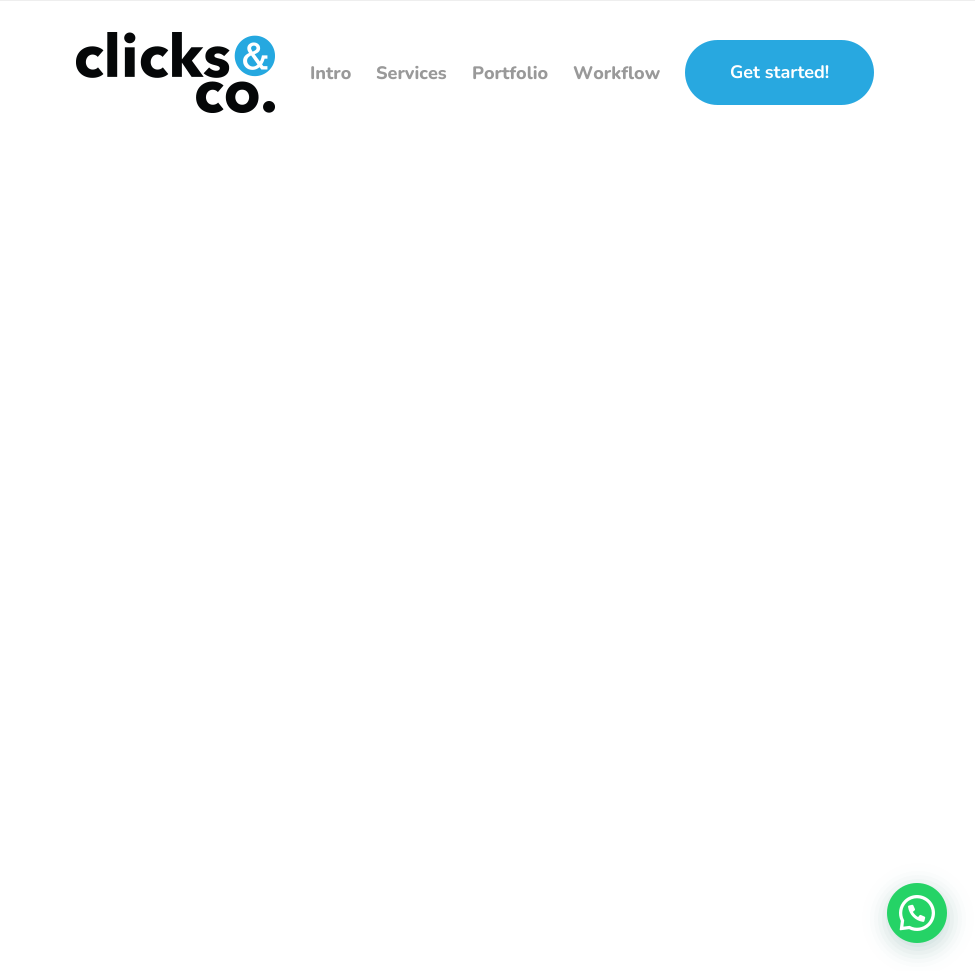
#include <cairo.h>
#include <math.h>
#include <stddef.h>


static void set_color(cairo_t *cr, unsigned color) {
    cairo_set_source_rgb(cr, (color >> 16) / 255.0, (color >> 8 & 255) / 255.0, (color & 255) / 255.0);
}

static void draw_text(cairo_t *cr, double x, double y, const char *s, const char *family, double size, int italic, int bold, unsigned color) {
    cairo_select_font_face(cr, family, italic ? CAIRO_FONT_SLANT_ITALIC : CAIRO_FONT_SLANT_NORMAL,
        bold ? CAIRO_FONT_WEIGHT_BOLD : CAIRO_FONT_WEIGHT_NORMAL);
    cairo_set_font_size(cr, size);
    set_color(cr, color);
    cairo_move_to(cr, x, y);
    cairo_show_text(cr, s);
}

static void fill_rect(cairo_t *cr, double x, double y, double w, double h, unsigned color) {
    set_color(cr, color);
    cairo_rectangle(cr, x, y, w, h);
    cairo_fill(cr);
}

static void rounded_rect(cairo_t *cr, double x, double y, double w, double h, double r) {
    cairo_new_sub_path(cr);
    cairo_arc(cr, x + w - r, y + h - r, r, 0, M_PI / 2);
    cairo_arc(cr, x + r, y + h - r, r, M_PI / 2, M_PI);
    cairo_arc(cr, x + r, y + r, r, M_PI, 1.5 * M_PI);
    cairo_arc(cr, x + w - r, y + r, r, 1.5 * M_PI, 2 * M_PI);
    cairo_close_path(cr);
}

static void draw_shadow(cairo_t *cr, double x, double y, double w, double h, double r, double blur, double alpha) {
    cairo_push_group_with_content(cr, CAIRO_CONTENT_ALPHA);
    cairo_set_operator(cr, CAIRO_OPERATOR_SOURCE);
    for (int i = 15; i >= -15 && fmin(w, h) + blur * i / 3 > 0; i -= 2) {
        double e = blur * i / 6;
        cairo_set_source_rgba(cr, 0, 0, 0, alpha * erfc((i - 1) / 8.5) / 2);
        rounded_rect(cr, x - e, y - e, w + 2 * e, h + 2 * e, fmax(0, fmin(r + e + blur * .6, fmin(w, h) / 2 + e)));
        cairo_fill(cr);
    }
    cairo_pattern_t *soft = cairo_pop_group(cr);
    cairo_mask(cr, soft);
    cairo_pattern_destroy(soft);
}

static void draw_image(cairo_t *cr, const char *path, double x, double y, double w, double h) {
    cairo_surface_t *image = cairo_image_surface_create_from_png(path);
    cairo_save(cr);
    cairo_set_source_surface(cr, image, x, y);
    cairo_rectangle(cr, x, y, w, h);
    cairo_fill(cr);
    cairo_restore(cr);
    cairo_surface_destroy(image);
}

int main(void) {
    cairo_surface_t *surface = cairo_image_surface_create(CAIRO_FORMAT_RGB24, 975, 971);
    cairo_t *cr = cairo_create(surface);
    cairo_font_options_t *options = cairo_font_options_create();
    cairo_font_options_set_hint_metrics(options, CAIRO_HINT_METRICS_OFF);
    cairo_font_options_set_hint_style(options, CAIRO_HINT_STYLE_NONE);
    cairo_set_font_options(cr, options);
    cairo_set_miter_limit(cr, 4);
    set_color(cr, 0xFFFFFF);
    cairo_paint(cr);
    fill_rect(cr, 0, 0, 975, 1, 0xEEEEEE);
    draw_image(cr, "assets/img1.png", 76, 32, 199, 81);
    draw_text(cr, 310, 79, "Intro", "Nunito ExtraBold", 18, 0, 0, 0x999999);
    draw_text(cr, 376, 79, "Services", "Nunito ExtraBold", 18, 0, 0, 0x999999);
    draw_text(cr, 472, 79, "Portfolio", "Nunito ExtraBold", 18, 0, 0, 0x999999);
    draw_text(cr, 573, 79, "Workflow", "Nunito ExtraBold", 18, 0, 0, 0x999999);
    set_color(cr, 0x28A8E0);
    rounded_rect(cr, 687.5, 42.5, 184, 60, 30);
    cairo_fill_preserve(cr);
    cairo_set_line_width(cr, 5);
    cairo_stroke(cr);
    draw_text(cr, 730, 78, "Get started!", "Nunito", 18, 0, 1, 0xFFFFFF);
    set_color(cr, 0x075E54);
    draw_shadow(cr, 888, 889, 60, 60, 30, 12, 0.24);
    set_color(cr, 0x25D366);
    cairo_arc(cr, 917, 913, 30, 0, 2 * M_PI);
    cairo_fill(cr);
    draw_image(cr, "assets/img2.png", 899, 895, 36, 36);
    cairo_surface_write_to_png(surface, "output.png");
    cairo_font_options_destroy(options);
    cairo_destroy(cr);
    cairo_surface_destroy(surface);
    return 0;
}
